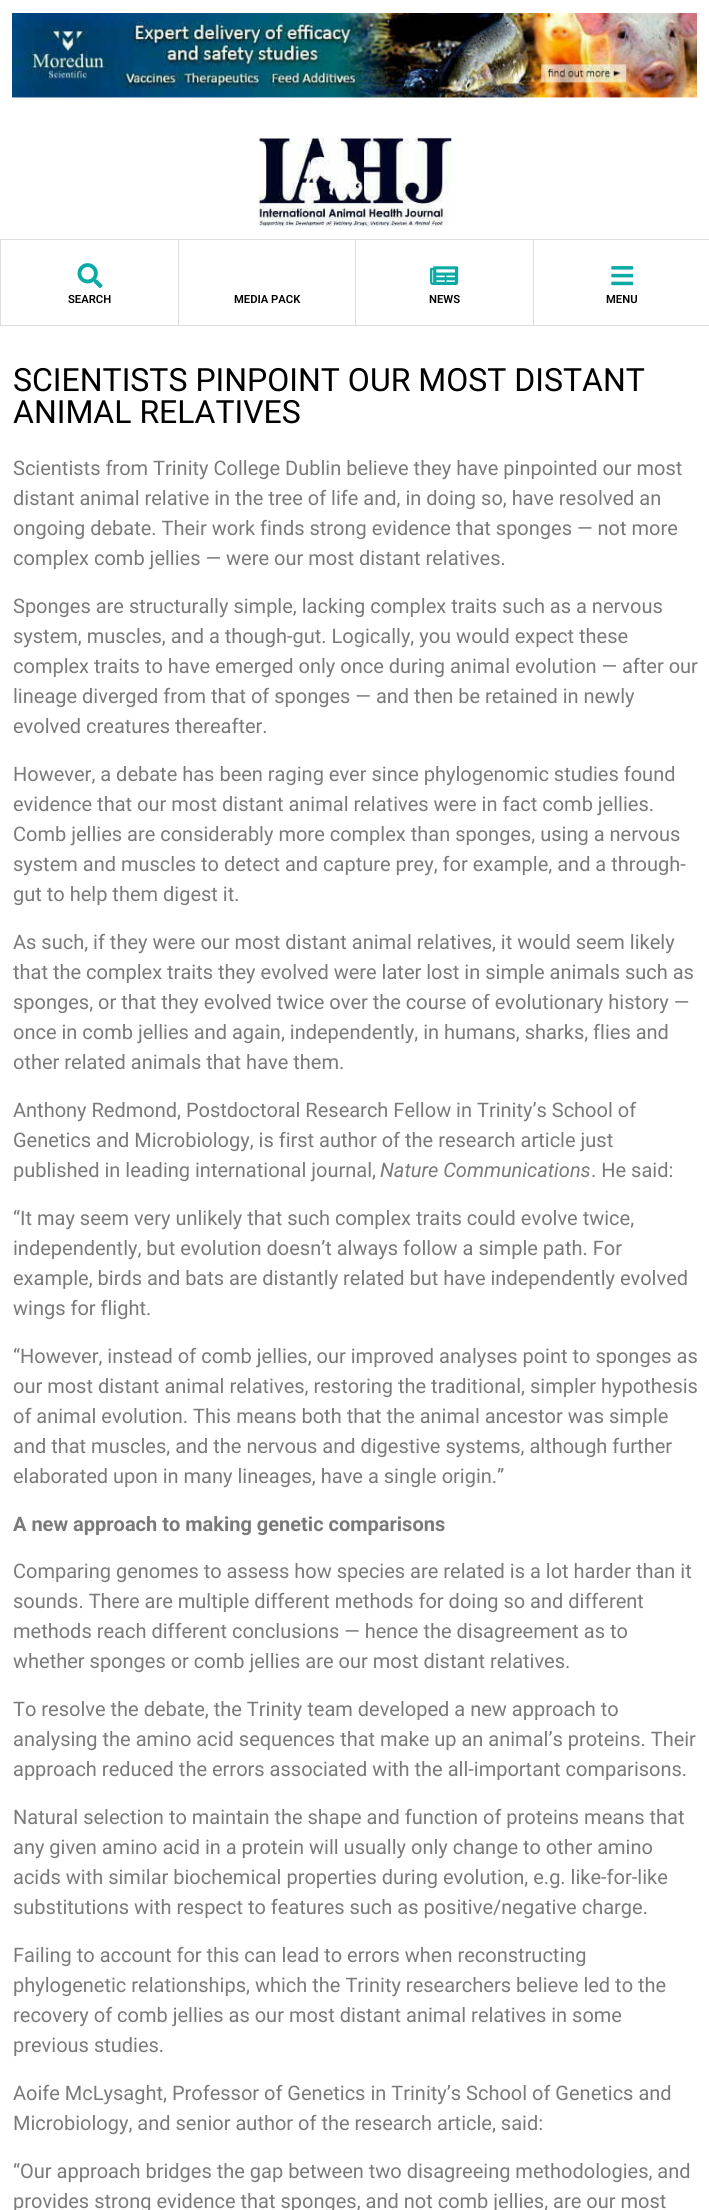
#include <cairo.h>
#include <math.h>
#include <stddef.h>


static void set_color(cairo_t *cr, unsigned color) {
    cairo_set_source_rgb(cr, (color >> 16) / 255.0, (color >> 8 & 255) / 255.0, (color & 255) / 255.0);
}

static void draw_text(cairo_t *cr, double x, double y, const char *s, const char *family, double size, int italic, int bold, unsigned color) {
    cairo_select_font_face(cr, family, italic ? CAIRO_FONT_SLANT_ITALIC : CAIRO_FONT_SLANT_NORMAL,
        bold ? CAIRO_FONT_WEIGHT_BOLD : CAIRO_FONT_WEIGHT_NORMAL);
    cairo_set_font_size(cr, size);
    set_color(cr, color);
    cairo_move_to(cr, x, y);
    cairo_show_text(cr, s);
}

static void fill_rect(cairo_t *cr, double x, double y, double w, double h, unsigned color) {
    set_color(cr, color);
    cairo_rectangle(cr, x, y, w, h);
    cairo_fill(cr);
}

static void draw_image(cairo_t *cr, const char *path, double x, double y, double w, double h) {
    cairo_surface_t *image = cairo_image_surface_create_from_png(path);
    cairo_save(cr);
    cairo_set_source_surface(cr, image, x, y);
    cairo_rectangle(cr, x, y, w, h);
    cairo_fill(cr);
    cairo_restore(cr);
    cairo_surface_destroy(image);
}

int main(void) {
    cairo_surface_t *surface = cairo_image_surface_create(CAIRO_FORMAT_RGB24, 709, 2210);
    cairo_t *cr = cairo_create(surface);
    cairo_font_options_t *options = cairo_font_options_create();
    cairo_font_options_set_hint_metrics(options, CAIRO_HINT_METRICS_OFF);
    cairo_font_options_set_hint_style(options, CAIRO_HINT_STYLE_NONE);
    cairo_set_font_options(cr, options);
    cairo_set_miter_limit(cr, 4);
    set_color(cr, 0xFFFFFF);
    cairo_paint(cr);
    draw_image(cr, "assets/img1.png", 12, 13, 685, 85);
    draw_image(cr, "assets/img2.png", 258, 137, 194, 90);
    fill_rect(cr, 0, 239, 709, 1, 0xDEDEDE);
    fill_rect(cr, 0, 325, 709, 1, 0xDEDEDE);
    fill_rect(cr, 0, 239, 1, 87, 0xDEDEDE);
    draw_image(cr, "assets/img3.png", 77, 263, 26, 26);
    draw_text(cr, 68, 303, "SEARCH", "Roboto SemiBold", 11.25, 0, 0, 0x000000);
    fill_rect(cr, 178, 239, 1, 87, 0xDEDEDE);
    draw_text(cr, 234, 303, "MEDIA PACK", "Roboto SemiBold", 11.25, 0, 0, 0x000000);
    fill_rect(cr, 355, 239, 1, 87, 0xDEDEDE);
    draw_image(cr, "assets/img4.png", 430, 266, 29, 19);
    draw_text(cr, 429, 303, "NEWS", "Roboto SemiBold", 11.25, 0, 0, 0x000000);
    fill_rect(cr, 533, 239, 1, 87, 0xDEDEDE);
    draw_image(cr, "assets/img5.png", 611, 266, 23, 20);
    draw_text(cr, 606, 303, "MENU", "Roboto SemiBold", 11.25, 0, 0, 0x000000);
    draw_text(cr, 13, 391, "SCIENTISTS PINPOINT OUR MOST DISTANT", "Roboto", 32, 0, 0, 0x000000);
    draw_text(cr, 13, 423, "ANIMAL RELATIVES", "Roboto", 32, 0, 0, 0x000000);
    draw_text(cr, 13, 475, "Scientists from Trinity College Dublin believe they have pinpointed our most", "Roboto", 20, 0, 0, 0x7A7A7A);
    draw_text(cr, 13, 505, "distant animal relative in the tree of life and, in doing so, have resolved an", "Roboto", 20, 0, 0, 0x7A7A7A);
    draw_text(cr, 13, 535, "ongoing debate. Their work finds strong evidence that sponges — not more", "Roboto", 20, 0, 0, 0x7A7A7A);
    draw_text(cr, 13, 565, "complex comb jellies — were our most distant relatives.", "Roboto", 20, 0, 0, 0x7A7A7A);
    draw_text(cr, 13, 613, "Sponges are structurally simple, lacking complex traits such as a nervous", "Roboto", 20, 0, 0, 0x7A7A7A);
    draw_text(cr, 13, 643, "system, muscles, and a though-gut. Logically, you would expect these", "Roboto", 20, 0, 0, 0x7A7A7A);
    draw_text(cr, 13, 673, "complex traits to have emerged only once during animal evolution — after our", "Roboto", 20, 0, 0, 0x7A7A7A);
    draw_text(cr, 13, 703, "lineage diverged from that of sponges — and then be retained in newly", "Roboto", 20, 0, 0, 0x7A7A7A);
    draw_text(cr, 13, 733, "evolved creatures thereafter.", "Roboto", 20, 0, 0, 0x7A7A7A);
    draw_text(cr, 13, 781, "However, a debate has been raging ever since phylogenomic studies found", "Roboto", 20, 0, 0, 0x7A7A7A);
    draw_text(cr, 13, 811, "evidence that our most distant animal relatives were in fact comb jellies.", "Roboto", 20, 0, 0, 0x7A7A7A);
    draw_text(cr, 13, 841, "Comb jellies are considerably more complex than sponges, using a nervous", "Roboto", 20, 0, 0, 0x7A7A7A);
    draw_text(cr, 13, 871, "system and muscles to detect and capture prey, for example, and a through-", "Roboto", 20, 0, 0, 0x7A7A7A);
    draw_text(cr, 13, 901, "gut to help them digest it.", "Roboto", 20, 0, 0, 0x7A7A7A);
    draw_text(cr, 13, 949, "As such, if they were our most distant animal relatives, it would seem likely", "Roboto", 20, 0, 0, 0x7A7A7A);
    draw_text(cr, 13, 979, "that the complex traits they evolved were later lost in simple animals such as", "Roboto", 20, 0, 0, 0x7A7A7A);
    draw_text(cr, 13, 1009, "sponges, or that they evolved twice over the course of evolutionary history —", "Roboto", 20, 0, 0, 0x7A7A7A);
    draw_text(cr, 13, 1039, "once in comb jellies and again, independently, in humans, sharks, flies and", "Roboto", 20, 0, 0, 0x7A7A7A);
    draw_text(cr, 13, 1069, "other related animals that have them.", "Roboto", 20, 0, 0, 0x7A7A7A);
    draw_text(cr, 13, 1117, "Anthony Redmond, Postdoctoral Research Fellow in Trinity’s School of", "Roboto", 20, 0, 0, 0x7A7A7A);
    draw_text(cr, 13, 1147, "Genetics and Microbiology, is first author of the research article just", "Roboto", 20, 0, 0, 0x7A7A7A);
    draw_text(cr, 13, 1177, "published in leading international journal,", "Roboto", 20, 0, 0, 0x7A7A7A);
    draw_text(cr, 380, 1177, "Nature Communications", "Roboto", 20, 1, 0, 0x7A7A7A);
    draw_text(cr, 591, 1177, ". He said:", "Roboto", 20, 0, 0, 0x7A7A7A);
    draw_text(cr, 13, 1225, "“It may seem very unlikely that such complex traits could evolve twice,", "Roboto", 20, 0, 0, 0x7A7A7A);
    draw_text(cr, 13, 1255, "independently, but evolution doesn’t always follow a simple path. For", "Roboto", 20, 0, 0, 0x7A7A7A);
    draw_text(cr, 13, 1285, "example, birds and bats are distantly related but have independently evolved", "Roboto", 20, 0, 0, 0x7A7A7A);
    draw_text(cr, 13, 1315, "wings for flight.", "Roboto", 20, 0, 0, 0x7A7A7A);
    draw_text(cr, 13, 1363, "“However, instead of comb jellies, our improved analyses point to sponges as", "Roboto", 20, 0, 0, 0x7A7A7A);
    draw_text(cr, 13, 1393, "our most distant animal relatives, restoring the traditional, simpler hypothesis", "Roboto", 20, 0, 0, 0x7A7A7A);
    draw_text(cr, 13, 1423, "of animal evolution. This means both that the animal ancestor was simple", "Roboto", 20, 0, 0, 0x7A7A7A);
    draw_text(cr, 13, 1453, "and that muscles, and the nervous and digestive systems, although further", "Roboto", 20, 0, 0, 0x7A7A7A);
    draw_text(cr, 13, 1483, "elaborated upon in many lineages, have a single origin.”", "Roboto", 20, 0, 0, 0x7A7A7A);
    draw_text(cr, 13, 1531, "A new approach to making genetic comparisons", "Roboto", 20, 0, 1, 0x7A7A7A);
    draw_text(cr, 13, 1578, "Comparing genomes to assess how species are related is a lot harder than it", "Roboto", 20, 0, 0, 0x7A7A7A);
    draw_text(cr, 13, 1608, "sounds. There are multiple different methods for doing so and different", "Roboto", 20, 0, 0, 0x7A7A7A);
    draw_text(cr, 13, 1638, "methods reach different conclusions — hence the disagreement as to", "Roboto", 20, 0, 0, 0x7A7A7A);
    draw_text(cr, 13, 1668, "whether sponges or comb jellies are our most distant relatives.", "Roboto", 20, 0, 0, 0x7A7A7A);
    draw_text(cr, 13, 1716, "To resolve the debate, the Trinity team developed a new approach to", "Roboto", 20, 0, 0, 0x7A7A7A);
    draw_text(cr, 13, 1746, "analysing the amino acid sequences that make up an animal’s proteins. Their", "Roboto", 20, 0, 0, 0x7A7A7A);
    draw_text(cr, 13, 1776, "approach reduced the errors associated with the all-important comparisons.", "Roboto", 20, 0, 0, 0x7A7A7A);
    draw_text(cr, 13, 1824, "Natural selection to maintain the shape and function of proteins means that", "Roboto", 20, 0, 0, 0x7A7A7A);
    draw_text(cr, 13, 1854, "any given amino acid in a protein will usually only change to other amino", "Roboto", 20, 0, 0, 0x7A7A7A);
    draw_text(cr, 13, 1884, "acids with similar biochemical properties during evolution, e.g. like-for-like", "Roboto", 20, 0, 0, 0x7A7A7A);
    draw_text(cr, 13, 1914, "substitutions with respect to features such as positive/negative charge.", "Roboto", 20, 0, 0, 0x7A7A7A);
    draw_text(cr, 13, 1962, "Failing to account for this can lead to errors when reconstructing", "Roboto", 20, 0, 0, 0x7A7A7A);
    draw_text(cr, 13, 1992, "phylogenetic relationships, which the Trinity researchers believe led to the", "Roboto", 20, 0, 0, 0x7A7A7A);
    draw_text(cr, 13, 2022, "recovery of comb jellies as our most distant animal relatives in some", "Roboto", 20, 0, 0, 0x7A7A7A);
    draw_text(cr, 13, 2052, "previous studies.", "Roboto", 20, 0, 0, 0x7A7A7A);
    draw_text(cr, 13, 2100, "Aoife McLysaght, Professor of Genetics in Trinity’s School of Genetics and", "Roboto", 20, 0, 0, 0x7A7A7A);
    draw_text(cr, 13, 2130, "Microbiology, and senior author of the research article, said:", "Roboto", 20, 0, 0, 0x7A7A7A);
    draw_text(cr, 13, 2178, "“Our approach bridges the gap between two disagreeing methodologies, and", "Roboto", 20, 0, 0, 0x7A7A7A);
    draw_text(cr, 13, 2208, "provides strong evidence that sponges, and not comb jellies, are our most", "Roboto", 20, 0, 0, 0x7A7A7A);
    cairo_surface_write_to_png(surface, "output.png");
    cairo_font_options_destroy(options);
    cairo_destroy(cr);
    cairo_surface_destroy(surface);
    return 0;
}
